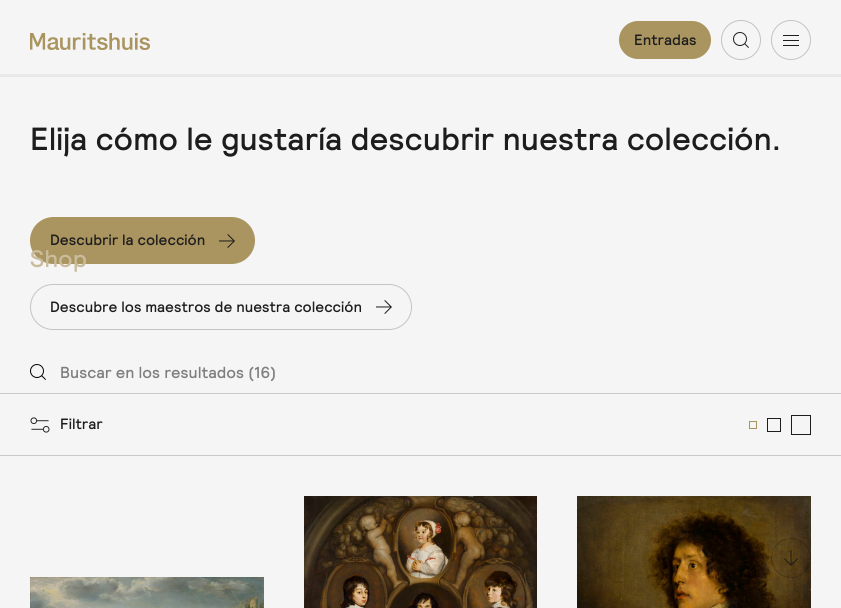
#include <cairo.h>
#include <math.h>
#include <stddef.h>


static void set_color(cairo_t *cr, unsigned color) {
    cairo_set_source_rgb(cr, (color >> 16) / 255.0, (color >> 8 & 255) / 255.0, (color & 255) / 255.0);
}

static void draw_text(cairo_t *cr, double x, double y, const char *s, const char *family, double size, int italic, int bold, unsigned color) {
    cairo_select_font_face(cr, family, italic ? CAIRO_FONT_SLANT_ITALIC : CAIRO_FONT_SLANT_NORMAL,
        bold ? CAIRO_FONT_WEIGHT_BOLD : CAIRO_FONT_WEIGHT_NORMAL);
    cairo_set_font_size(cr, size);
    set_color(cr, color);
    cairo_move_to(cr, x, y);
    cairo_show_text(cr, s);
}

static void fill_rect(cairo_t *cr, double x, double y, double w, double h, unsigned color) {
    set_color(cr, color);
    cairo_rectangle(cr, x, y, w, h);
    cairo_fill(cr);
}

static void rounded_rect(cairo_t *cr, double x, double y, double w, double h, double r) {
    cairo_new_sub_path(cr);
    cairo_arc(cr, x + w - r, y + h - r, r, 0, M_PI / 2);
    cairo_arc(cr, x + r, y + h - r, r, M_PI / 2, M_PI);
    cairo_arc(cr, x + r, y + r, r, M_PI, 1.5 * M_PI);
    cairo_arc(cr, x + w - r, y + r, r, 1.5 * M_PI, 2 * M_PI);
    cairo_close_path(cr);
}

static void draw_image(cairo_t *cr, const char *path, double x, double y, double w, double h) {
    cairo_surface_t *image = cairo_image_surface_create_from_png(path);
    cairo_save(cr);
    cairo_set_source_surface(cr, image, x, y);
    cairo_rectangle(cr, x, y, w, h);
    cairo_fill(cr);
    cairo_restore(cr);
    cairo_surface_destroy(image);
}

int main(void) {
    cairo_surface_t *surface = cairo_image_surface_create(CAIRO_FORMAT_RGB24, 841, 608);
    cairo_t *cr = cairo_create(surface);
    cairo_font_options_t *options = cairo_font_options_create();
    cairo_font_options_set_hint_metrics(options, CAIRO_HINT_METRICS_OFF);
    cairo_font_options_set_hint_style(options, CAIRO_HINT_STYLE_NONE);
    cairo_set_font_options(cr, options);
    cairo_set_miter_limit(cr, 4);
    set_color(cr, 0xF5F5F5);
    cairo_paint(cr);
    draw_image(cr, "assets/img1.png", 30, 33, 120, 17);
    set_color(cr, 0xAA945F);
    rounded_rect(cr, 619, 21, 92, 38, 19);
    cairo_fill(cr);
    draw_text(cr, 634, 45, "Entradas", "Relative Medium", 14.95, 0, 0, 0x1D1D1D);
    cairo_new_path(cr);
    cairo_arc(cr, 741, 40, 19.5, 0, 2 * M_PI);
    set_color(cr, 0xC4C4C4);
    cairo_set_line_width(cr, 1);
    cairo_stroke(cr);
    draw_image(cr, "assets/img2.png", 733, 32, 16, 16);
    cairo_arc(cr, 791, 40, 19.5, 0, 2 * M_PI);
    cairo_stroke(cr);
    draw_image(cr, "assets/img3.png", 783, 35, 16, 11);
    set_color(cr, 0xAA945F);
    rounded_rect(cr, 30, 217, 225, 47, 23.5);
    cairo_fill(cr);
    draw_text(cr, 30, 267, "Shop", "Relative Medium", 24, 0, 0, 0xC9BC9C);
    draw_text(cr, 30, 150, "Elija cómo le gustaría descubrir nuestra colección.", "Relative Medium", 32, 0, 0, 0x1D1D1D);
    draw_text(cr, 50, 245, "Descubrir la colección", "Relative Medium", 14.95, 0, 0, 0x1D1D1D);
    draw_image(cr, "assets/img4.png", 219, 234, 16, 14);
    rounded_rect(cr, 30.5, 284.5, 381, 45, 22.5);
    set_color(cr, 0xC4C4C4);
    cairo_stroke(cr);
    draw_text(cr, 50, 312, "Descubre los maestros de nuestra colección", "Relative Medium", 14.95, 0, 0, 0x1D1D1D);
    draw_image(cr, "assets/img5.png", 376, 300, 16, 14);
    fill_rect(cr, 0, 74, 841, 3, 0xE9E9E9);
    fill_rect(cr, 0, 455, 841, 1, 0xC9C9C9);
    fill_rect(cr, 0, 393, 841, 1, 0xC9C9C9);
    draw_image(cr, "assets/img6.png", 30, 364, 16, 16);
    draw_text(cr, 60, 378, "Buscar en los resultados (16)", "Relative Medium", 16, 0, 0, 0x7E7E7E);
    draw_image(cr, "assets/img7.png", 30, 417, 20, 16);
    draw_text(cr, 60, 429, "Filtrar", "Relative Medium", 14.95, 0, 0, 0x1D1D1D);
    cairo_rectangle(cr, 749.5, 421.5, 7, 7);
    set_color(cr, 0xAA945F);
    cairo_stroke(cr);
    cairo_rectangle(cr, 767.5, 418.5, 13, 13);
    set_color(cr, 0x1D1D1D);
    cairo_stroke(cr);
    cairo_rectangle(cr, 791.5, 415.5, 19, 19);
    cairo_stroke(cr);
    draw_image(cr, "assets/img8.png", 30, 577, 234, 31);
    draw_image(cr, "assets/img9.png", 304, 496, 233, 112);
    draw_image(cr, "assets/img10.png", 577, 496, 234, 112);
    cairo_arc(cr, 791, 558, 19.5, 0, 2 * M_PI);
    cairo_set_source_rgba(cr, 0, 0, 0, 0.2);
    cairo_stroke(cr);
    draw_image(cr, "assets/img11.png", 784, 550, 14, 16);
    cairo_surface_write_to_png(surface, "output.png");
    cairo_font_options_destroy(options);
    cairo_destroy(cr);
    cairo_surface_destroy(surface);
    return 0;
}
